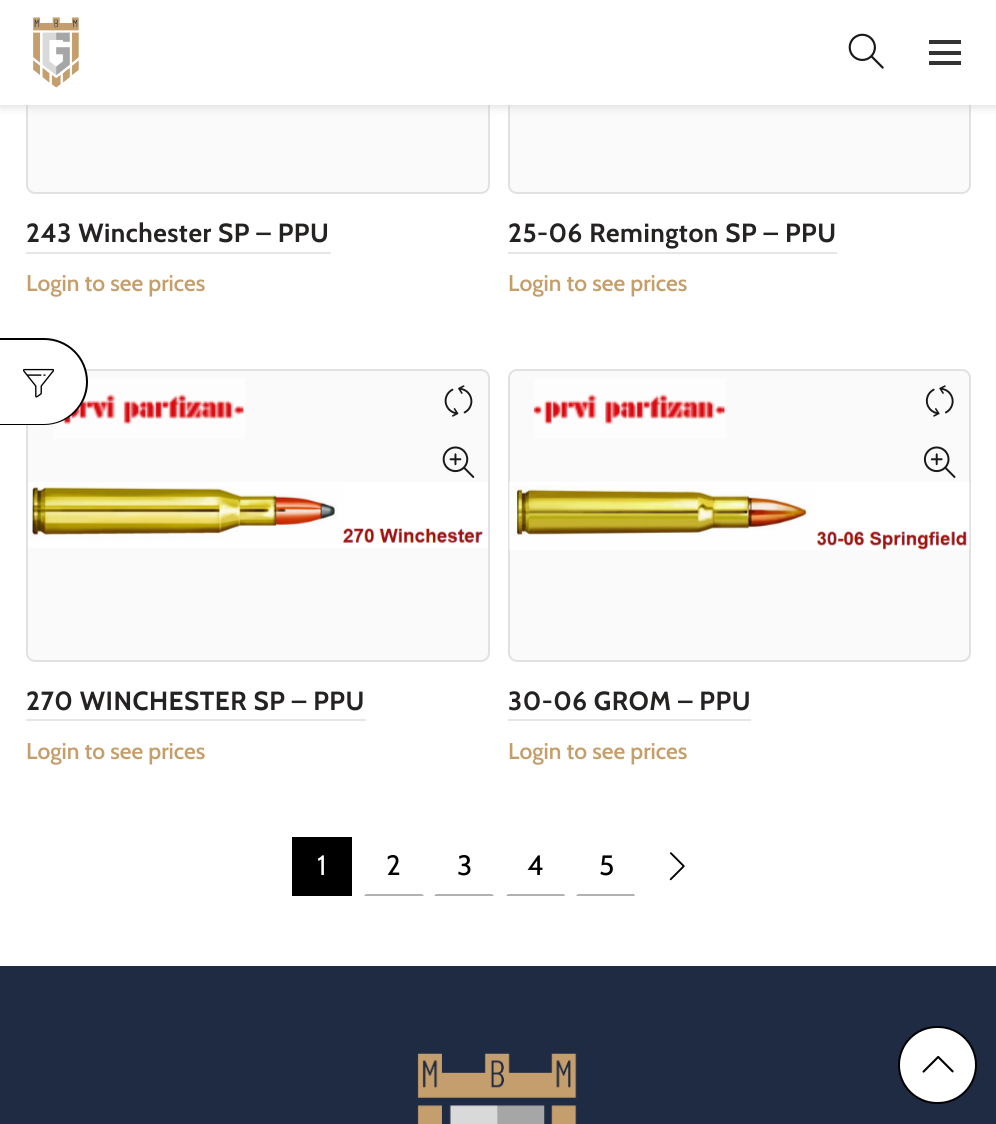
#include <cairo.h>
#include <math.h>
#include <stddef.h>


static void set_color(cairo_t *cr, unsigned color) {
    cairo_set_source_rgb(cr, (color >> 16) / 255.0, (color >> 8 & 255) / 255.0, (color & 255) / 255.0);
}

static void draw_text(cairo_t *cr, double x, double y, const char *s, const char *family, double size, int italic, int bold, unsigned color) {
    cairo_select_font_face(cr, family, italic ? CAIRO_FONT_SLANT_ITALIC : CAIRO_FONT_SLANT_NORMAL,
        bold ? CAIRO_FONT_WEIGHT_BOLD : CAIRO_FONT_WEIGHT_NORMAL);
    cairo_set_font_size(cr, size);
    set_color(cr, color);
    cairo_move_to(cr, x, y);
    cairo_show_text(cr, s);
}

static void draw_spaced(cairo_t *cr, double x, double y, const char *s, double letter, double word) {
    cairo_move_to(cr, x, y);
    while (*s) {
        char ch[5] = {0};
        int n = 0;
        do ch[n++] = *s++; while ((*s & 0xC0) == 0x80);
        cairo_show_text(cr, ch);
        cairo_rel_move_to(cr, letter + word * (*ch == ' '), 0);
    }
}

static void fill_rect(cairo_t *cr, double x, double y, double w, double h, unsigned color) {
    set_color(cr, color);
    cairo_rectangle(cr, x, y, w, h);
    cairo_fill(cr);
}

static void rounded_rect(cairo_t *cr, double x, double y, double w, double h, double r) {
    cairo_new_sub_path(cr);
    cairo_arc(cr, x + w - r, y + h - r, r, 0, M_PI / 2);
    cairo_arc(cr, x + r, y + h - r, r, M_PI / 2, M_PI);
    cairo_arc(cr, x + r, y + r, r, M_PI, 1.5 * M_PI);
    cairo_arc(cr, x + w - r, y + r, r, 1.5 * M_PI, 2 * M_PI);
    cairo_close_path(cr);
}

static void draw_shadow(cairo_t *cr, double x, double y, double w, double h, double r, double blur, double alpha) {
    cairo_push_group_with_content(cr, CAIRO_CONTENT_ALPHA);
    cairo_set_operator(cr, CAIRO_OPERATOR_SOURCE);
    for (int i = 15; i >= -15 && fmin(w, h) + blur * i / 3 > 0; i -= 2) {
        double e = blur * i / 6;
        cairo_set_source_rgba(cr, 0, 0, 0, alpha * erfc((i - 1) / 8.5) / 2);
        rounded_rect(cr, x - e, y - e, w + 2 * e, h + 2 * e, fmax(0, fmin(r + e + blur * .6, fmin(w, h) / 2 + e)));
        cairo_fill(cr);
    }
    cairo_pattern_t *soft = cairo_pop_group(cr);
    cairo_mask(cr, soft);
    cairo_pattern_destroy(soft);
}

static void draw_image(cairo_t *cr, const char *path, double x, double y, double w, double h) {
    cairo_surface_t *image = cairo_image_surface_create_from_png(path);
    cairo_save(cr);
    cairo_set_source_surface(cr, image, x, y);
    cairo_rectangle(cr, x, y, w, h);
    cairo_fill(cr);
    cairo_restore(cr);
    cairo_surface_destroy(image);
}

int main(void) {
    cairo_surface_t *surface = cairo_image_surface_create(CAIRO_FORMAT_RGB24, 996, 1124);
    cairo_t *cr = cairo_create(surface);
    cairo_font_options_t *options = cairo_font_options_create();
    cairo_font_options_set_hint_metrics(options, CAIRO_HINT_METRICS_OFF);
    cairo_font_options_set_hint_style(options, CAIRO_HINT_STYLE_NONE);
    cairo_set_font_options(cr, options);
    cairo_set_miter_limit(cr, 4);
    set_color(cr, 0xFFFFFF);
    cairo_paint(cr);
    set_color(cr, 0xFAFAFA);
    rounded_rect(cr, 27, -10, 462, 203, 8);
    cairo_fill_preserve(cr);
    set_color(cr, 0xE1E1E1);
    cairo_stroke(cr);
    set_color(cr, 0xFAFAFA);
    rounded_rect(cr, 509, -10, 461, 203, 8);
    cairo_fill_preserve(cr);
    set_color(cr, 0xE1E1E1);
    cairo_stroke(cr);
    set_color(cr, 0xBEBEBE);
    draw_shadow(cr, 0, 2, 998, 105, 0, 4.5, 0.5);
    fill_rect(cr, 0, 0, 996, 105, 0xFFFFFF);
    draw_image(cr, "assets/img1.png", 33, 17, 46, 71);
    draw_image(cr, "assets/img2.png", 848, 33, 36, 36);
    fill_rect(cr, 929, 51, 32, 4, 0x333333);
    fill_rect(cr, 929, 40, 32, 4, 0x333333);
    fill_rect(cr, 929, 61, 32, 4, 0x333333);
    cairo_select_font_face(cr, "Cabin", CAIRO_FONT_SLANT_NORMAL, CAIRO_FONT_WEIGHT_BOLD);
    cairo_set_font_size(cr, 26.25);
    set_color(cr, 0x252222);
    draw_spaced(cr, 26, 242, "243 Winchester SP – PPU", 0.5, 0);
    fill_rect(cr, 26, 252, 305, 2, 0xE6E6E6);
    draw_text(cr, 26, 291, "Login to see prices", "Cabin SemiBold", 22.75, 0, 0, 0xC59F6B);
    cairo_select_font_face(cr, "Cabin", CAIRO_FONT_SLANT_NORMAL, CAIRO_FONT_WEIGHT_BOLD);
    cairo_set_font_size(cr, 26.25);
    set_color(cr, 0x252222);
    draw_spaced(cr, 508, 242, "25-06 Remington SP – PPU", 0.5, 0);
    fill_rect(cr, 508, 252, 329, 2, 0xE6E6E6);
    draw_text(cr, 508, 291, "Login to see prices", "Cabin SemiBold", 22.75, 0, 0, 0xC59F6B);
    set_color(cr, 0xFAFAFA);
    rounded_rect(cr, 27, 370, 462, 291, 8);
    cairo_fill_preserve(cr);
    set_color(cr, 0xE1E1E1);
    cairo_stroke(cr);
    draw_image(cr, "assets/img3.png", 444, 385, 29, 32);
    draw_image(cr, "assets/img4.png", 442, 446, 33, 32);
    draw_image(cr, "assets/img5.png", 28, 482, 460, 66);
    fill_rect(cr, 53, 378, 192, 61, 0xFDFDFD);
    draw_image(cr, "assets/img6.png", 62, 393, 182, 32);
    cairo_select_font_face(cr, "Cabin", CAIRO_FONT_SLANT_NORMAL, CAIRO_FONT_WEIGHT_BOLD);
    cairo_set_font_size(cr, 26.25);
    set_color(cr, 0x252222);
    draw_spaced(cr, 26, 710, "270 WINCHESTER SP – PPU", 0.5, 0);
    fill_rect(cr, 26, 719, 340, 2, 0xE6E6E6);
    draw_text(cr, 26, 759, "Login to see prices", "Cabin SemiBold", 22.75, 0, 0, 0xC59F6B);
    set_color(cr, 0xFAFAFA);
    rounded_rect(cr, 509, 370, 461, 291, 8);
    cairo_fill_preserve(cr);
    set_color(cr, 0xE1E1E1);
    cairo_stroke(cr);
    draw_image(cr, "assets/img7.png", 925, 385, 29, 32);
    draw_image(cr, "assets/img8.png", 923, 446, 33, 32);
    draw_image(cr, "assets/img9.png", 509, 481, 461, 69);
    fill_rect(cr, 534, 378, 192, 61, 0xFDFDFD);
    draw_image(cr, "assets/img10.png", 533, 393, 192, 32);
    cairo_select_font_face(cr, "Cabin", CAIRO_FONT_SLANT_NORMAL, CAIRO_FONT_WEIGHT_BOLD);
    cairo_set_font_size(cr, 26.25);
    set_color(cr, 0x252222);
    draw_spaced(cr, 508, 710, "30-06 GROM – PPU", 0.5, 0);
    fill_rect(cr, 508, 719, 243, 2, 0xE6E6E6);
    draw_text(cr, 508, 759, "Login to see prices", "Cabin SemiBold", 22.75, 0, 0, 0xC59F6B);
    fill_rect(cr, 292, 837, 60, 59, 0x000000);
    draw_text(cr, 317, 875, "1", "Cabin", 28, 0, 0, 0xFFFFFF);
    set_color(cr, 0xB1B1B1);
    cairo_new_path(cr);
    cairo_move_to(cr, 424, 896);
    cairo_line_to(cr, 364, 896);
    cairo_line_to(cr, 366, 894);
    cairo_line_to(cr, 422, 894);
    cairo_close_path(cr);
    cairo_fill(cr);
    draw_text(cr, 386, 875, "2", "Cabin", 28, 0, 0, 0x000000);
    set_color(cr, 0xB1B1B1);
    cairo_new_path(cr);
    cairo_move_to(cr, 494, 896);
    cairo_line_to(cr, 434, 896);
    cairo_line_to(cr, 436, 894);
    cairo_line_to(cr, 492, 894);
    cairo_close_path(cr);
    cairo_fill(cr);
    draw_text(cr, 457, 875, "3", "Cabin", 28, 0, 0, 0x000000);
    set_color(cr, 0xB1B1B1);
    cairo_new_path(cr);
    cairo_move_to(cr, 565, 896);
    cairo_line_to(cr, 506, 896);
    cairo_line_to(cr, 508, 894);
    cairo_line_to(cr, 564, 894);
    cairo_close_path(cr);
    cairo_fill(cr);
    draw_text(cr, 527, 875, "4", "Cabin", 28, 0, 0, 0x000000);
    set_color(cr, 0xB1B1B1);
    cairo_new_path(cr);
    cairo_move_to(cr, 635, 896);
    cairo_line_to(cr, 576, 896);
    cairo_line_to(cr, 578, 894);
    cairo_line_to(cr, 634, 894);
    cairo_close_path(cr);
    cairo_fill(cr);
    draw_text(cr, 599, 875, "5", "Cabin", 28, 0, 0, 0x000000);
    draw_image(cr, "assets/img11.png", 669, 852, 16, 29);
    fill_rect(cr, 0, 966, 996, 158, 0x1F2B43);
    draw_image(cr, "assets/img12.png", 417, 1053, 160, 71);
    set_color(cr, 0xFFFFFF);
    cairo_new_path(cr);
    cairo_move_to(cr, 0, 340);
    cairo_line_to(cr, 44, 340);
    cairo_curve_to(cr, 67, 340, 86, 359, 86, 382);
    cairo_curve_to(cr, 86, 405, 67, 424, 44, 424);
    cairo_line_to(cr, 0, 424);
    cairo_close_path(cr);
    cairo_fill(cr);
    set_color(cr, 0x000000);
    cairo_set_fill_rule(cr, CAIRO_FILL_RULE_EVEN_ODD);
    cairo_new_path(cr);
    cairo_move_to(cr, 0, 338);
    cairo_line_to(cr, 44, 338);
    cairo_curve_to(cr, 68, 338, 88, 357, 88, 382);
    cairo_curve_to(cr, 88, 406, 68, 425, 44, 425);
    cairo_line_to(cr, 0, 425);
    cairo_close_path(cr);
    cairo_move_to(cr, 0, 340);
    cairo_line_to(cr, 44, 340);
    cairo_curve_to(cr, 67, 340, 86, 358, 86, 382);
    cairo_curve_to(cr, 86, 405, 67, 424, 44, 424);
    cairo_line_to(cr, 0, 424);
    cairo_close_path(cr);
    cairo_fill(cr);
    draw_image(cr, "assets/img13.png", 23, 368, 31, 30);
    set_color(cr, 0xFFFFFF);
    rounded_rect(cr, 899, 1027, 77, 76, 38);
    cairo_fill_preserve(cr);
    set_color(cr, 0x000000);
    cairo_stroke(cr);
    draw_image(cr, "assets/img14.png", 922, 1055, 32, 18);
    cairo_surface_write_to_png(surface, "output.png");
    cairo_font_options_destroy(options);
    cairo_destroy(cr);
    cairo_surface_destroy(surface);
    return 0;
}
